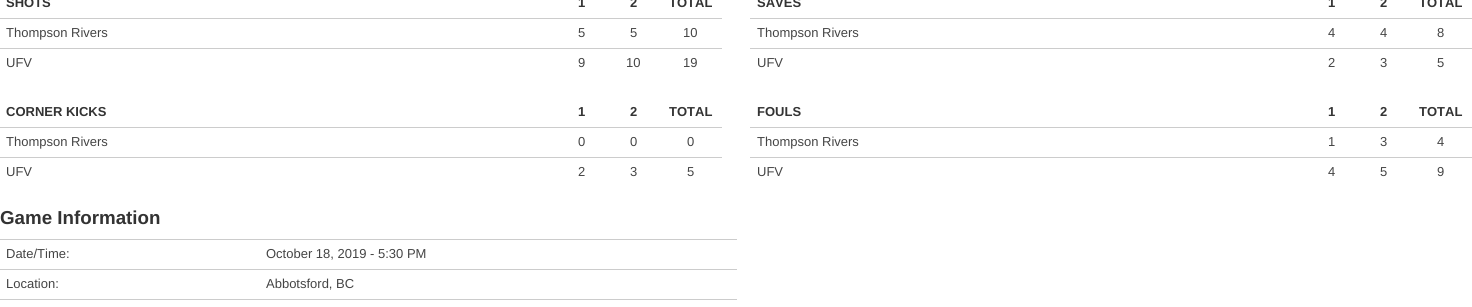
#include <cairo.h>
#include <math.h>
#include <stddef.h>


static void set_color(cairo_t *cr, unsigned color) {
    cairo_set_source_rgb(cr, (color >> 16) / 255.0, (color >> 8 & 255) / 255.0, (color & 255) / 255.0);
}

static void draw_text(cairo_t *cr, double x, double y, const char *s, const char *family, double size, int italic, int bold, unsigned color) {
    cairo_select_font_face(cr, family, italic ? CAIRO_FONT_SLANT_ITALIC : CAIRO_FONT_SLANT_NORMAL,
        bold ? CAIRO_FONT_WEIGHT_BOLD : CAIRO_FONT_WEIGHT_NORMAL);
    cairo_set_font_size(cr, size);
    set_color(cr, color);
    cairo_move_to(cr, x, y);
    cairo_show_text(cr, s);
}

static void fill_rect(cairo_t *cr, double x, double y, double w, double h, unsigned color) {
    set_color(cr, color);
    cairo_rectangle(cr, x, y, w, h);
    cairo_fill(cr);
}

int main(void) {
    cairo_surface_t *surface = cairo_image_surface_create(CAIRO_FORMAT_RGB24, 1472, 307);
    cairo_t *cr = cairo_create(surface);
    cairo_font_options_t *options = cairo_font_options_create();
    cairo_font_options_set_hint_metrics(options, CAIRO_HINT_METRICS_OFF);
    cairo_font_options_set_hint_style(options, CAIRO_HINT_STYLE_NONE);
    cairo_set_font_options(cr, options);
    cairo_set_miter_limit(cr, 4);
    set_color(cr, 0xFFFFFF);
    cairo_paint(cr);
    draw_text(cr, 6, 7, "SHOTS", "Liberation Sans", 13, 0, 1, 0x333333);
    draw_text(cr, 578, 7, "1", "Liberation Sans", 13, 0, 1, 0x333333);
    draw_text(cr, 630, 7, "2", "Liberation Sans", 13, 0, 1, 0x333333);
    draw_text(cr, 669, 7, "TOTAL", "Liberation Sans", 13, 0, 1, 0x333333);
    draw_text(cr, 6, 37, "Thompson Rivers", "Liberation Sans", 13, 0, 0, 0x444444);
    draw_text(cr, 578, 37, "5", "Liberation Sans", 13, 0, 0, 0x444444);
    draw_text(cr, 630, 37, "5", "Liberation Sans", 13, 0, 0, 0x444444);
    fill_rect(cr, 0, 18, 722, 1, 0xCCCCCC);
    draw_text(cr, 683, 37, "10", "Liberation Sans", 13, 0, 0, 0x444444);
    draw_text(cr, 6, 67, "UFV", "Liberation Sans", 13, 0, 0, 0x444444);
    draw_text(cr, 578, 67, "9", "Liberation Sans", 13, 0, 0, 0x444444);
    draw_text(cr, 626, 67, "10", "Liberation Sans", 13, 0, 0, 0x444444);
    fill_rect(cr, 0, 48, 722, 1, 0xCCCCCC);
    draw_text(cr, 683, 67, "19", "Liberation Sans", 13, 0, 0, 0x444444);
    draw_text(cr, 757, 7, "SAVES", "Liberation Sans", 13, 0, 1, 0x333333);
    draw_text(cr, 1328, 7, "1", "Liberation Sans", 13, 0, 1, 0x333333);
    draw_text(cr, 1380, 7, "2", "Liberation Sans", 13, 0, 1, 0x333333);
    draw_text(cr, 1419, 7, "TOTAL", "Liberation Sans", 13, 0, 1, 0x333333);
    draw_text(cr, 757, 37, "Thompson Rivers", "Liberation Sans", 13, 0, 0, 0x444444);
    draw_text(cr, 1328, 37, "4", "Liberation Sans", 13, 0, 0, 0x444444);
    draw_text(cr, 1380, 37, "4", "Liberation Sans", 13, 0, 0, 0x444444);
    fill_rect(cr, 750, 18, 722, 1, 0xCCCCCC);
    draw_text(cr, 1437, 37, "8", "Liberation Sans", 13, 0, 0, 0x444444);
    draw_text(cr, 757, 67, "UFV", "Liberation Sans", 13, 0, 0, 0x444444);
    draw_text(cr, 1328, 67, "2", "Liberation Sans", 13, 0, 0, 0x444444);
    draw_text(cr, 1380, 67, "3", "Liberation Sans", 13, 0, 0, 0x444444);
    fill_rect(cr, 750, 48, 722, 1, 0xCCCCCC);
    draw_text(cr, 1437, 67, "5", "Liberation Sans", 13, 0, 0, 0x444444);
    draw_text(cr, 6, 116, "CORNER KICKS", "Liberation Sans", 13, 0, 1, 0x333333);
    draw_text(cr, 578, 116, "1", "Liberation Sans", 13, 0, 1, 0x333333);
    draw_text(cr, 630, 116, "2", "Liberation Sans", 13, 0, 1, 0x333333);
    draw_text(cr, 669, 116, "TOTAL", "Liberation Sans", 13, 0, 1, 0x333333);
    draw_text(cr, 6, 146, "Thompson Rivers", "Liberation Sans", 13, 0, 0, 0x444444);
    draw_text(cr, 578, 146, "0", "Liberation Sans", 13, 0, 0, 0x444444);
    draw_text(cr, 630, 146, "0", "Liberation Sans", 13, 0, 0, 0x444444);
    fill_rect(cr, 0, 127, 722, 1, 0xCCCCCC);
    draw_text(cr, 687, 146, "0", "Liberation Sans", 13, 0, 0, 0x444444);
    draw_text(cr, 6, 176, "UFV", "Liberation Sans", 13, 0, 0, 0x444444);
    draw_text(cr, 578, 176, "2", "Liberation Sans", 13, 0, 0, 0x444444);
    draw_text(cr, 630, 176, "3", "Liberation Sans", 13, 0, 0, 0x444444);
    fill_rect(cr, 0, 157, 722, 1, 0xCCCCCC);
    draw_text(cr, 687, 176, "5", "Liberation Sans", 13, 0, 0, 0x444444);
    draw_text(cr, 757, 116, "FOULS", "Liberation Sans", 13, 0, 1, 0x333333);
    draw_text(cr, 1328, 116, "1", "Liberation Sans", 13, 0, 1, 0x333333);
    draw_text(cr, 1380, 116, "2", "Liberation Sans", 13, 0, 1, 0x333333);
    draw_text(cr, 1419, 116, "TOTAL", "Liberation Sans", 13, 0, 1, 0x333333);
    draw_text(cr, 757, 146, "Thompson Rivers", "Liberation Sans", 13, 0, 0, 0x444444);
    draw_text(cr, 1328, 146, "1", "Liberation Sans", 13, 0, 0, 0x444444);
    draw_text(cr, 1380, 146, "3", "Liberation Sans", 13, 0, 0, 0x444444);
    fill_rect(cr, 750, 127, 722, 1, 0xCCCCCC);
    draw_text(cr, 1437, 146, "4", "Liberation Sans", 13, 0, 0, 0x444444);
    draw_text(cr, 757, 176, "UFV", "Liberation Sans", 13, 0, 0, 0x444444);
    draw_text(cr, 1328, 176, "4", "Liberation Sans", 13, 0, 0, 0x444444);
    draw_text(cr, 1380, 176, "5", "Liberation Sans", 13, 0, 0, 0x444444);
    fill_rect(cr, 750, 157, 722, 1, 0xCCCCCC);
    draw_text(cr, 1437, 176, "9", "Liberation Sans", 13, 0, 0, 0x444444);
    draw_text(cr, 0, 224, "Game Information", "Liberation Sans", 18.75, 0, 1, 0x333333);
    draw_text(cr, 6, 258, "Date/Time:", "Liberation Sans", 13, 0, 0, 0x444444);
    fill_rect(cr, 0, 239, 737, 1, 0xCCCCCC);
    draw_text(cr, 266, 258, "October 18, 2019 - 5:30 PM", "Liberation Sans", 13, 0, 0, 0x444444);
    draw_text(cr, 6, 288, "Location:", "Liberation Sans", 13, 0, 0, 0x444444);
    fill_rect(cr, 0, 269, 737, 1, 0xCCCCCC);
    draw_text(cr, 266, 288, "Abbotsford, BC", "Liberation Sans", 13, 0, 0, 0x444444);
    fill_rect(cr, 0, 299, 737, 1, 0xCCCCCC);
    cairo_surface_write_to_png(surface, "output.png");
    cairo_font_options_destroy(options);
    cairo_destroy(cr);
    cairo_surface_destroy(surface);
    return 0;
}
